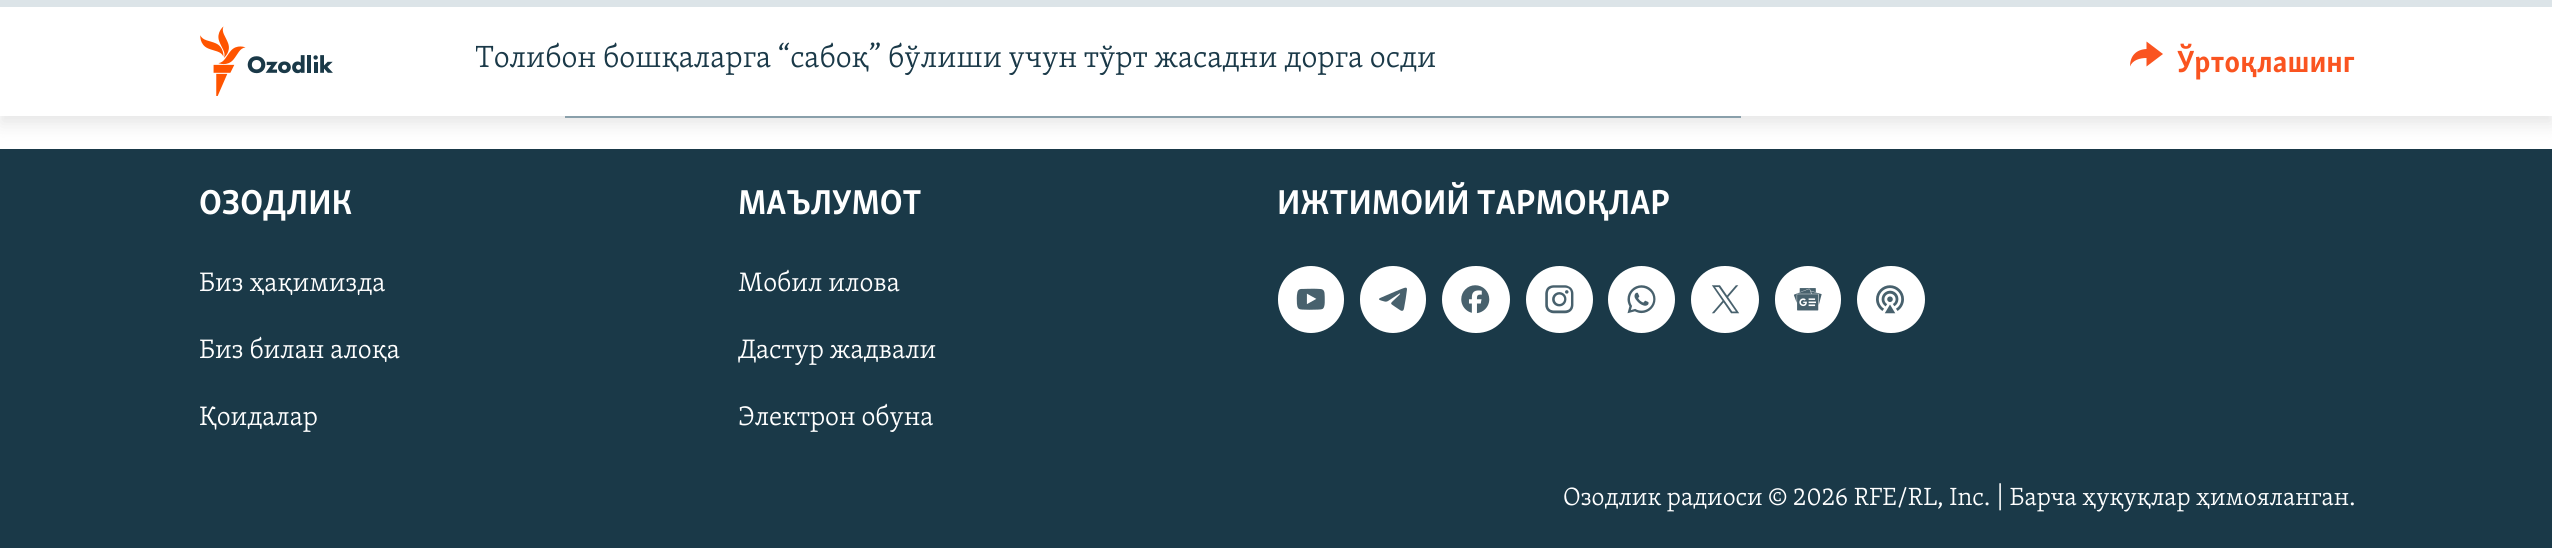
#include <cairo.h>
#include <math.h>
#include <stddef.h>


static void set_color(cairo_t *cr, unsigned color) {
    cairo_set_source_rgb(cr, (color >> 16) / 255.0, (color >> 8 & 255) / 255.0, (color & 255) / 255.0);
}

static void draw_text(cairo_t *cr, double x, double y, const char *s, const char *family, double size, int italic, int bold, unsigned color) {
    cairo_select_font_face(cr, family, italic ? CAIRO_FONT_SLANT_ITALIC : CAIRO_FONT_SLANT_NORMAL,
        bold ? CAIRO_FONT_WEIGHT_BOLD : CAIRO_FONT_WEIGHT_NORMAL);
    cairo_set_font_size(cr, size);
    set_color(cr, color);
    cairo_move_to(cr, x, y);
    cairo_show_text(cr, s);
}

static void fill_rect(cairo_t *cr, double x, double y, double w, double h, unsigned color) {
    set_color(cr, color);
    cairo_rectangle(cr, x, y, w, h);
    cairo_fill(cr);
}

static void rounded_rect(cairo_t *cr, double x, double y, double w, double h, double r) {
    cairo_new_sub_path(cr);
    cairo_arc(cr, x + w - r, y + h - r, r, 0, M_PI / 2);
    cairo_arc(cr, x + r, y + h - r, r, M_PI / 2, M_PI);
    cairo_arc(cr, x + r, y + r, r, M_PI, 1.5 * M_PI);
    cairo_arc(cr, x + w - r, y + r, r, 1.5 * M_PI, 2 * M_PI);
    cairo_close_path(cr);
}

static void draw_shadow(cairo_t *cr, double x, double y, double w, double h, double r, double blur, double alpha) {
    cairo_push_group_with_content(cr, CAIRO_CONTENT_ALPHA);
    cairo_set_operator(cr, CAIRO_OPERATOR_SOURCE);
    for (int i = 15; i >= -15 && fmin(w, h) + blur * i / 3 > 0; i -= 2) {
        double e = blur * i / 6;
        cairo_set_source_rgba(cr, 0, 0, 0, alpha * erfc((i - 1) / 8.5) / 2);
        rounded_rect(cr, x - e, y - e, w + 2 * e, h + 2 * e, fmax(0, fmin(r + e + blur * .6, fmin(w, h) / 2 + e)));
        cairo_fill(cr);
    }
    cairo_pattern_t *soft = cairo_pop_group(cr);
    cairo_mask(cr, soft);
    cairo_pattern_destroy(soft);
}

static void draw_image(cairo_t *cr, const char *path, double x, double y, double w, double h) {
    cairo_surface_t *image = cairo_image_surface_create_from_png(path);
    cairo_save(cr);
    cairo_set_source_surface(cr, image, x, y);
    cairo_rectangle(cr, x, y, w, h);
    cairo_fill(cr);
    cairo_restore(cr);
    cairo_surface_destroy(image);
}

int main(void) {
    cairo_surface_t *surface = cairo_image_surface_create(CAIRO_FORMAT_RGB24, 2552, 548);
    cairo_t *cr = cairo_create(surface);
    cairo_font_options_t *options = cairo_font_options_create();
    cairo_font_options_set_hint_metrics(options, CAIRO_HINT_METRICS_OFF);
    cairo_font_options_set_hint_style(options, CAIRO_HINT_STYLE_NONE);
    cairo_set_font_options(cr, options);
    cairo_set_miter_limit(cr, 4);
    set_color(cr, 0xFFFFFF);
    cairo_paint(cr);
    fill_rect(cr, 565, 116, 1176, 2, 0x95ADB9);
    fill_rect(cr, 0, 149, 2552, 399, 0x1A3948);
    set_color(cr, 0x000000);
    draw_shadow(cr, 0, 9, 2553, 115, 0, 9, 0.1);
    fill_rect(cr, 0, 7, 2552, 109, 0xFFFFFF);
    fill_rect(cr, 0, 0, 2552, 7, 0xDCE4E8);
    draw_image(cr, "assets/img1.png", 200, 26, 133, 70);
    cairo_save(cr);
    cairo_rectangle(cr, 476, 39, 1621, 45);
    cairo_clip(cr);
    draw_text(cr, 475, 67, "Толибон бошқаларга “сабоқ” бўлиши учун тўрт жасадни дорга осди", "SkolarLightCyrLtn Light", 31.5, 0, 0, 0x1A3948);
    cairo_restore(cr);
    set_color(cr, 0xFA5420);
    cairo_new_path(cr);
    cairo_move_to(cr, 2130, 66.5);
    cairo_curve_to(cr, 2130, 56, 2136, 49.5, 2146.5, 49);
    cairo_line_to(cr, 2146.5, 41.5);
    cairo_line_to(cr, 2163, 54);
    cairo_line_to(cr, 2146.5, 66.5);
    cairo_line_to(cr, 2146.5, 58);
    cairo_curve_to(cr, 2140, 58, 2132.5, 60, 2130, 66.5);
    cairo_close_path(cr);
    cairo_fill(cr);
    draw_text(cr, 2177, 72, "Ўртоқлашинг", "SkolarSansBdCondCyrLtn", 31.5, 0, 1, 0xFA5420);
    draw_text(cr, 199, 214, "ОЗОДЛИК", "SkolarSansBdCondCyrLtn", 35.5, 0, 1, 0xFFFFFF);
    draw_text(cr, 199, 291, "Биз ҳақимизда", "SkolarLightCyrLtn Light", 27.5, 0, 0, 0xFFFFFF);
    draw_text(cr, 199, 358, "Биз билан алоқа", "SkolarLightCyrLtn Light", 27.5, 0, 0, 0xFFFFFF);
    draw_text(cr, 199, 425, "Қоидалар", "SkolarLightCyrLtn Light", 27.5, 0, 0, 0xFFFFFF);
    draw_text(cr, 738, 214, "МАЪЛУМОТ", "SkolarSansBdCondCyrLtn", 35.5, 0, 1, 0xFFFFFF);
    draw_text(cr, 738, 291, "Мобил илова", "SkolarLightCyrLtn Light", 27.5, 0, 0, 0xFFFFFF);
    draw_text(cr, 738, 358, "Дастур жадвали", "SkolarLightCyrLtn Light", 27.5, 0, 0, 0xFFFFFF);
    draw_text(cr, 738, 425, "Электрон обуна", "SkolarLightCyrLtn Light", 27.5, 0, 0, 0xFFFFFF);
    draw_text(cr, 1277, 214, "ИЖТИМОИЙ ТАРМОҚЛАР", "SkolarSansBdCondCyrLtn", 35.5, 0, 1, 0xFFFFFF);
    rounded_rect(cr, 1278, 266, 66, 67, 33);
    cairo_fill(cr);
    draw_image(cr, "assets/img2.png", 1296, 288, 29, 22);
    rounded_rect(cr, 1360, 266, 66, 67, 33);
    cairo_fill(cr);
    draw_image(cr, "assets/img3.png", 1379, 287, 28, 24);
    rounded_rect(cr, 1442, 266, 68, 67, 33.5);
    cairo_fill(cr);
    draw_image(cr, "assets/img4.png", 1461, 285, 29, 29);
    cairo_arc(cr, 1559.5, 299.5, 33.5, 0, 2 * M_PI);
    cairo_fill(cr);
    draw_image(cr, "assets/img5.png", 1545, 285, 29, 29);
    cairo_arc(cr, 1641.5, 299.5, 33.5, 0, 2 * M_PI);
    cairo_fill(cr);
    draw_image(cr, "assets/img6.png", 1627, 285, 29, 29);
    rounded_rect(cr, 1691, 266, 68, 67, 33.5);
    cairo_fill(cr);
    draw_image(cr, "assets/img7.png", 1711, 285, 29, 29);
    rounded_rect(cr, 1775, 266, 66, 67, 33);
    cairo_fill(cr);
    draw_image(cr, "assets/img8.png", 1793, 288, 29, 23);
    rounded_rect(cr, 1857, 266, 68, 67, 33.5);
    cairo_fill(cr);
    draw_image(cr, "assets/img9.png", 1876, 285, 28, 29);
    draw_text(cr, 1563, 505, "Озодлик радиоси © 2026 RFE/RL, Inc. | Барча ҳуқуқлар ҳимояланган.", "SkolarLightCyrLtn Light", 25.6, 0, 0, 0xFFFFFF);
    cairo_surface_write_to_png(surface, "output.png");
    cairo_font_options_destroy(options);
    cairo_destroy(cr);
    cairo_surface_destroy(surface);
    return 0;
}
